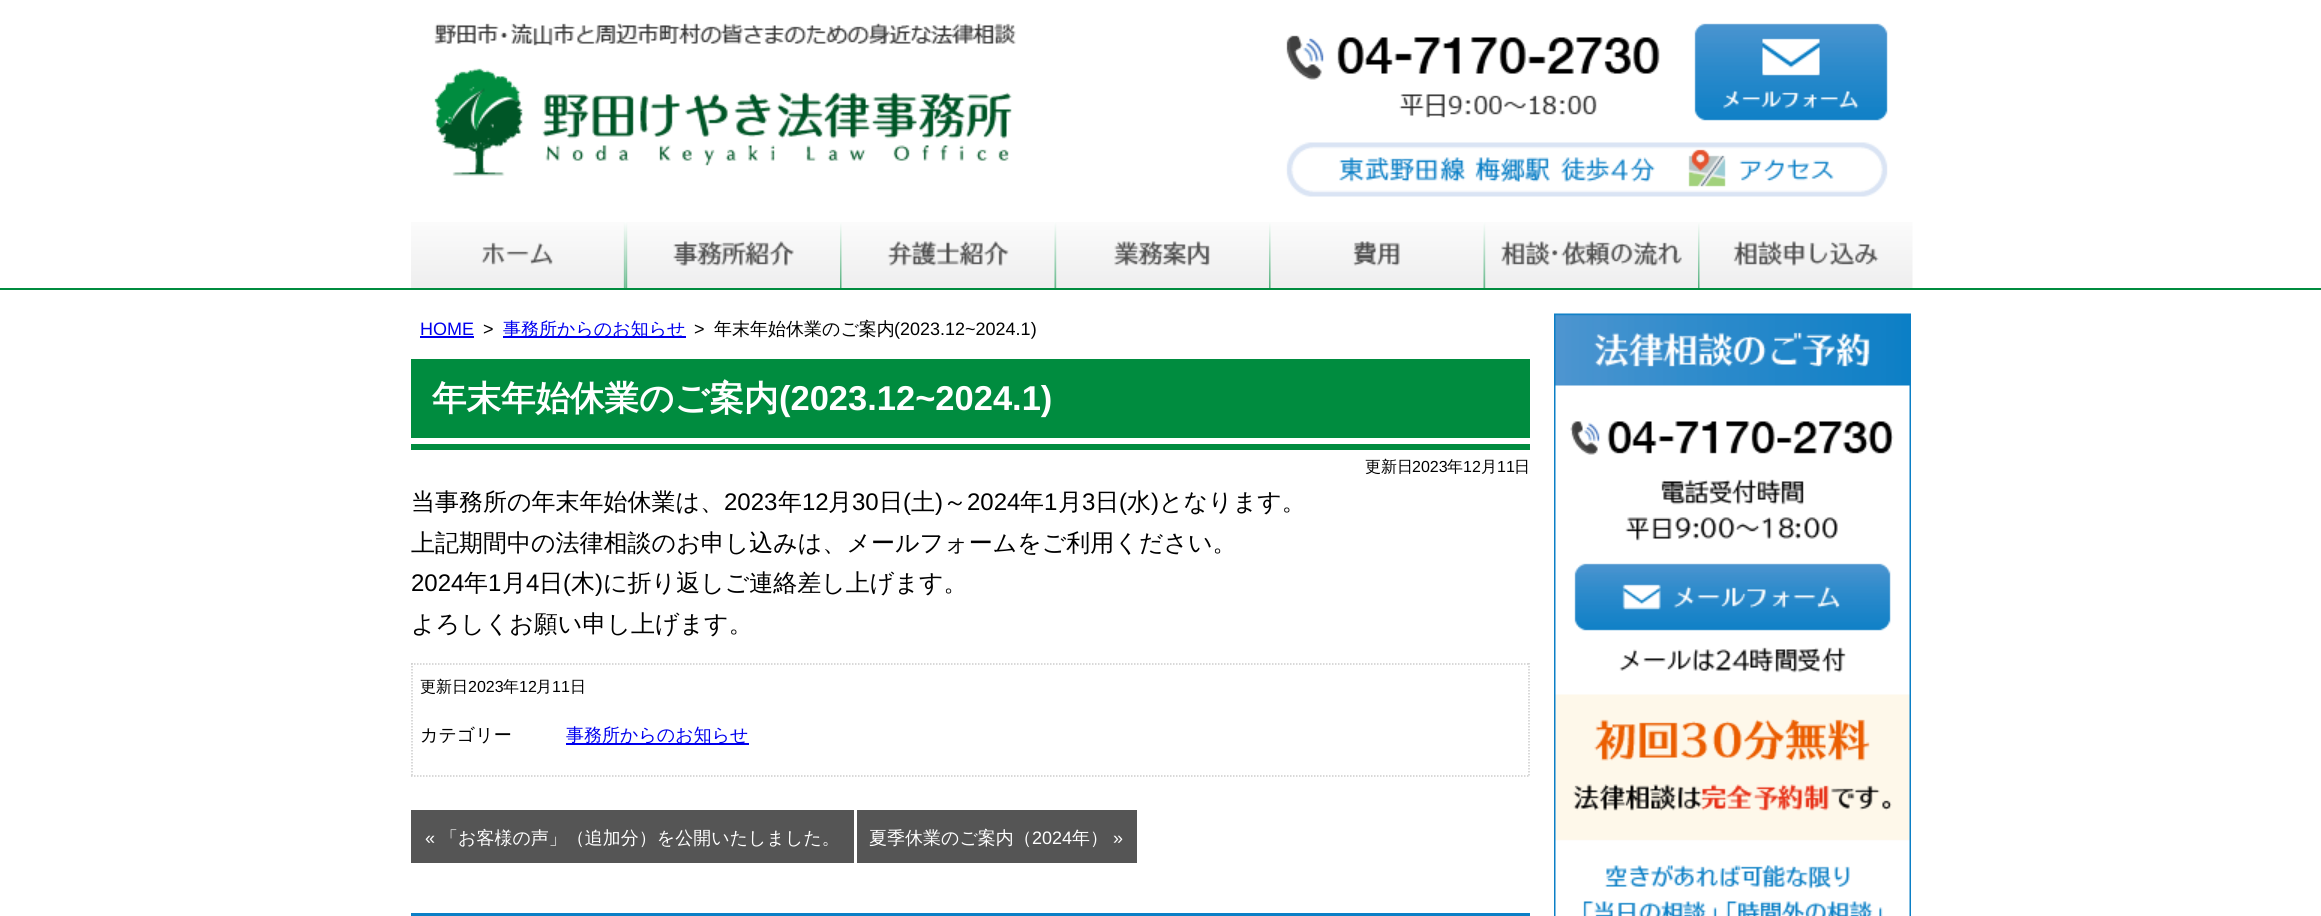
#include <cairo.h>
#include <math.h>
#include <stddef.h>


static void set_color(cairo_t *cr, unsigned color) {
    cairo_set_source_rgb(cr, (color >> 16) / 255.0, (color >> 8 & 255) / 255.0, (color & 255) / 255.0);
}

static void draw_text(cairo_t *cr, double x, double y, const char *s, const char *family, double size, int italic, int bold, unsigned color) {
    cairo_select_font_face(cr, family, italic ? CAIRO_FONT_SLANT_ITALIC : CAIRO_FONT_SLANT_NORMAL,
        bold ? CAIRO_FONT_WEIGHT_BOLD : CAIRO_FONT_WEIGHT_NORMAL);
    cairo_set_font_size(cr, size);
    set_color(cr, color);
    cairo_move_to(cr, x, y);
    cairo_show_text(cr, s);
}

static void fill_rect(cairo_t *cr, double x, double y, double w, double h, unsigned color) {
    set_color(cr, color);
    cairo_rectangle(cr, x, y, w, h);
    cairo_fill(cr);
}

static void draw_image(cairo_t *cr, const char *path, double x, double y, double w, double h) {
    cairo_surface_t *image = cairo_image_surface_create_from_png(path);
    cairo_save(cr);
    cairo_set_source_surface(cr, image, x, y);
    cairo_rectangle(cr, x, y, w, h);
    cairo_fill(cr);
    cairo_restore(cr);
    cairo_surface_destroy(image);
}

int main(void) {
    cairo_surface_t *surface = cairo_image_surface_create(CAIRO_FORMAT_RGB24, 2321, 916);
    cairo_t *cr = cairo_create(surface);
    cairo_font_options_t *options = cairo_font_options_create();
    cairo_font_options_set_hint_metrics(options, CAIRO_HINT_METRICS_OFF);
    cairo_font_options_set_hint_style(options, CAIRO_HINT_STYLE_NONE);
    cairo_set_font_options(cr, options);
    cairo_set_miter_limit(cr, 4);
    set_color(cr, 0xFFFFFF);
    cairo_paint(cr);
    draw_image(cr, "assets/img1.png", 434, 22, 1454, 175);
    fill_rect(cr, 0, 288, 2321, 2, 0x008C3F);
    draw_image(cr, "assets/img2.png", 411, 222, 215, 66);
    draw_image(cr, "assets/img3.png", 625, 222, 215, 66);
    draw_image(cr, "assets/img4.png", 840, 222, 215, 66);
    draw_image(cr, "assets/img5.png", 1054, 222, 215, 66);
    draw_image(cr, "assets/img6.png", 1269, 222, 215, 66);
    draw_image(cr, "assets/img7.png", 1483, 222, 215, 66);
    draw_image(cr, "assets/img8.png", 1698, 222, 215, 66);
    draw_text(cr, 420, 335, "HOME", "Liberation Sans", 18, 0, 0, 0x0000EE);
    fill_rect(cr, 420, 336, 54, 2, 0x0000EE);
    draw_text(cr, 483, 335, ">", "Liberation Sans", 18, 0, 0, 0x000000);
    fill_rect(cr, 503, 336, 183, 2, 0x0000EE);
    draw_text(cr, 503, 335, "事務所からのお知らせ", "WenQuanYi Zen Hei Medium", 18, 0, 0, 0x0000EE);
    draw_text(cr, 694, 335, ">", "Liberation Sans", 18, 0, 0, 0x000000);
    draw_text(cr, 714, 335, "年末年始休業のご案内", "WenQuanYi Zen Hei Medium", 18, 0, 0, 0x000000);
    draw_text(cr, 894, 335, "(2023.12~2024.1)", "Liberation Sans", 18, 0, 0, 0x000000);
    fill_rect(cr, 411, 359, 1119, 91, 0x008C3F);
    draw_text(cr, 432, 410, "年末年始休業のご案内", "WenQuanYi Zen Hei", 34.5, 0, 1, 0xFFFFFF);
    draw_text(cr, 779, 410, "(2023.12~2024.1)", "Liberation Sans", 34.5, 0, 1, 0xFFFFFF);
    fill_rect(cr, 411, 438, 1119, 6, 0xFFFFFF);
    draw_text(cr, 1365, 472, "更新日", "WenQuanYi Zen Hei Medium", 16, 0, 0, 0x000000);
    draw_text(cr, 1412, 472, "2023", "Liberation Sans", 16, 0, 0, 0x000000);
    draw_text(cr, 1447, 472, "年", "WenQuanYi Zen Hei Medium", 16, 0, 0, 0x000000);
    draw_text(cr, 1463, 472, "12", "Liberation Sans", 16, 0, 0, 0x000000);
    draw_text(cr, 1481, 472, "月", "WenQuanYi Zen Hei Medium", 16, 0, 0, 0x000000);
    draw_text(cr, 1497, 472, "11", "Liberation Sans", 16, 0, 0, 0x000000);
    draw_text(cr, 1514, 472, "日", "WenQuanYi Zen Hei Medium", 16, 0, 0, 0x000000);
    draw_text(cr, 411, 510, "当事務所の年末年始休業は、", "WenQuanYi Zen Hei Medium", 24, 0, 0, 0x000000);
    draw_text(cr, 724, 510, "2023", "Liberation Sans", 24, 0, 0, 0x000000);
    draw_text(cr, 778, 510, "年", "WenQuanYi Zen Hei Medium", 24, 0, 0, 0x000000);
    draw_text(cr, 802, 510, "12", "Liberation Sans", 24, 0, 0, 0x000000);
    draw_text(cr, 828, 510, "月", "WenQuanYi Zen Hei Medium", 24, 0, 0, 0x000000);
    draw_text(cr, 852, 510, "30", "Liberation Sans", 24, 0, 0, 0x000000);
    draw_text(cr, 879, 510, "日", "WenQuanYi Zen Hei Medium", 24, 0, 0, 0x000000);
    draw_text(cr, 903, 510, "(", "Liberation Sans", 24, 0, 0, 0x000000);
    draw_text(cr, 911, 510, "土", "WenQuanYi Zen Hei Medium", 24, 0, 0, 0x000000);
    draw_text(cr, 935, 510, ")", "Liberation Sans", 24, 0, 0, 0x000000);
    draw_text(cr, 943, 510, "～", "WenQuanYi Zen Hei Medium", 24, 0, 0, 0x000000);
    draw_text(cr, 967, 510, "2024", "Liberation Sans", 24, 0, 0, 0x000000);
    draw_text(cr, 1020, 510, "年", "WenQuanYi Zen Hei Medium", 24, 0, 0, 0x000000);
    draw_text(cr, 1044, 510, "1", "Liberation Sans", 24, 0, 0, 0x000000);
    draw_text(cr, 1058, 510, "月", "WenQuanYi Zen Hei Medium", 24, 0, 0, 0x000000);
    draw_text(cr, 1082, 510, "3", "Liberation Sans", 24, 0, 0, 0x000000);
    draw_text(cr, 1095, 510, "日", "WenQuanYi Zen Hei Medium", 24, 0, 0, 0x000000);
    draw_text(cr, 1119, 510, "(", "Liberation Sans", 24, 0, 0, 0x000000);
    draw_text(cr, 1127, 510, "水", "WenQuanYi Zen Hei Medium", 24, 0, 0, 0x000000);
    draw_text(cr, 1151, 510, ")", "Liberation Sans", 24, 0, 0, 0x000000);
    draw_text(cr, 1159, 510, "となります。", "WenQuanYi Zen Hei Medium", 24, 0, 0, 0x000000);
    draw_text(cr, 411, 551, "上記期間中の法律相談のお申し込みは、メールフォームをご利用ください。", "WenQuanYi Zen Hei Medium", 24, 0, 0, 0x000000);
    draw_text(cr, 411, 591, "2024", "Liberation Sans", 24, 0, 0, 0x000000);
    draw_text(cr, 464, 591, "年", "WenQuanYi Zen Hei Medium", 24, 0, 0, 0x000000);
    draw_text(cr, 488, 591, "1", "Liberation Sans", 24, 0, 0, 0x000000);
    draw_text(cr, 502, 591, "月", "WenQuanYi Zen Hei Medium", 24, 0, 0, 0x000000);
    draw_text(cr, 526, 591, "4", "Liberation Sans", 24, 0, 0, 0x000000);
    draw_text(cr, 539, 591, "日", "WenQuanYi Zen Hei Medium", 24, 0, 0, 0x000000);
    draw_text(cr, 563, 591, "(", "Liberation Sans", 24, 0, 0, 0x000000);
    draw_text(cr, 571, 591, "木", "WenQuanYi Zen Hei Medium", 24, 0, 0, 0x000000);
    draw_text(cr, 595, 591, ")", "Liberation Sans", 24, 0, 0, 0x000000);
    draw_text(cr, 603, 591, "に折り返しご連絡差し上げます。", "WenQuanYi Zen Hei Medium", 24, 0, 0, 0x000000);
    draw_text(cr, 411, 632, "よろしくお願い申し上げます。", "WenQuanYi Zen Hei Medium", 24, 0, 0, 0x000000);
    cairo_new_path(cr);
    cairo_move_to(cr, 411, 664);
    cairo_line_to(cr, 1530, 664);
    set_color(cr, 0xCCCCCC);
    cairo_set_line_width(cr, 1.5);
    cairo_set_dash(cr, (double[]){1.5, 1.5}, 2, 0);
    cairo_stroke(cr);
    cairo_new_path(cr);
    cairo_move_to(cr, 1529, 663);
    cairo_line_to(cr, 1529, 777);
    cairo_stroke(cr);
    cairo_new_path(cr);
    cairo_move_to(cr, 411, 776);
    cairo_line_to(cr, 1530, 776);
    cairo_stroke(cr);
    cairo_new_path(cr);
    cairo_move_to(cr, 412, 663);
    cairo_line_to(cr, 412, 777);
    cairo_stroke(cr);
    draw_text(cr, 420, 692, "更新日", "WenQuanYi Zen Hei Medium", 16, 0, 0, 0x000000);
    draw_text(cr, 468, 692, "2023", "Liberation Sans", 16, 0, 0, 0x000000);
    draw_text(cr, 503, 692, "年", "WenQuanYi Zen Hei Medium", 16, 0, 0, 0x000000);
    draw_text(cr, 519, 692, "12", "Liberation Sans", 16, 0, 0, 0x000000);
    draw_text(cr, 536, 692, "月", "WenQuanYi Zen Hei Medium", 16, 0, 0, 0x000000);
    draw_text(cr, 552, 692, "11", "Liberation Sans", 16, 0, 0, 0x000000);
    draw_text(cr, 570, 692, "日", "WenQuanYi Zen Hei Medium", 16, 0, 0, 0x000000);
    draw_text(cr, 420, 741, "カテゴリー", "WenQuanYi Zen Hei Medium", 18, 0, 0, 0x000000);
    fill_rect(cr, 566, 743, 183, 2, 0x0000EE);
    draw_text(cr, 566, 741, "事務所からのお知らせ", "WenQuanYi Zen Hei Medium", 18, 0, 0, 0x0000EE);
    fill_rect(cr, 411, 810, 443, 53, 0x555555);
    draw_text(cr, 425, 844, "«", "Liberation Sans", 18, 0, 0, 0xFFFFFF);
    draw_text(cr, 440, 844, "「お客様の声」（追加分）を公開いたしました。", "WenQuanYi Zen Hei Medium", 18, 0, 0, 0xFFFFFF);
    fill_rect(cr, 857, 810, 280, 53, 0x555555);
    draw_text(cr, 869, 844, "夏季休業のご案内（", "WenQuanYi Zen Hei Medium", 18, 0, 0, 0xFFFFFF);
    draw_text(cr, 1032, 844, "2024", "Liberation Sans", 18, 0, 0, 0xFFFFFF);
    draw_text(cr, 1072, 844, "年）", "WenQuanYi Zen Hei Medium", 18, 0, 0, 0xFFFFFF);
    draw_text(cr, 1113, 844, "»", "Liberation Sans", 18, 0, 0, 0xFFFFFF);
    fill_rect(cr, 411, 913, 1119, 3, 0x0B7FC6);
    draw_image(cr, "assets/img9.png", 1554, 313, 357, 603);
    cairo_surface_write_to_png(surface, "output.png");
    cairo_font_options_destroy(options);
    cairo_destroy(cr);
    cairo_surface_destroy(surface);
    return 0;
}
